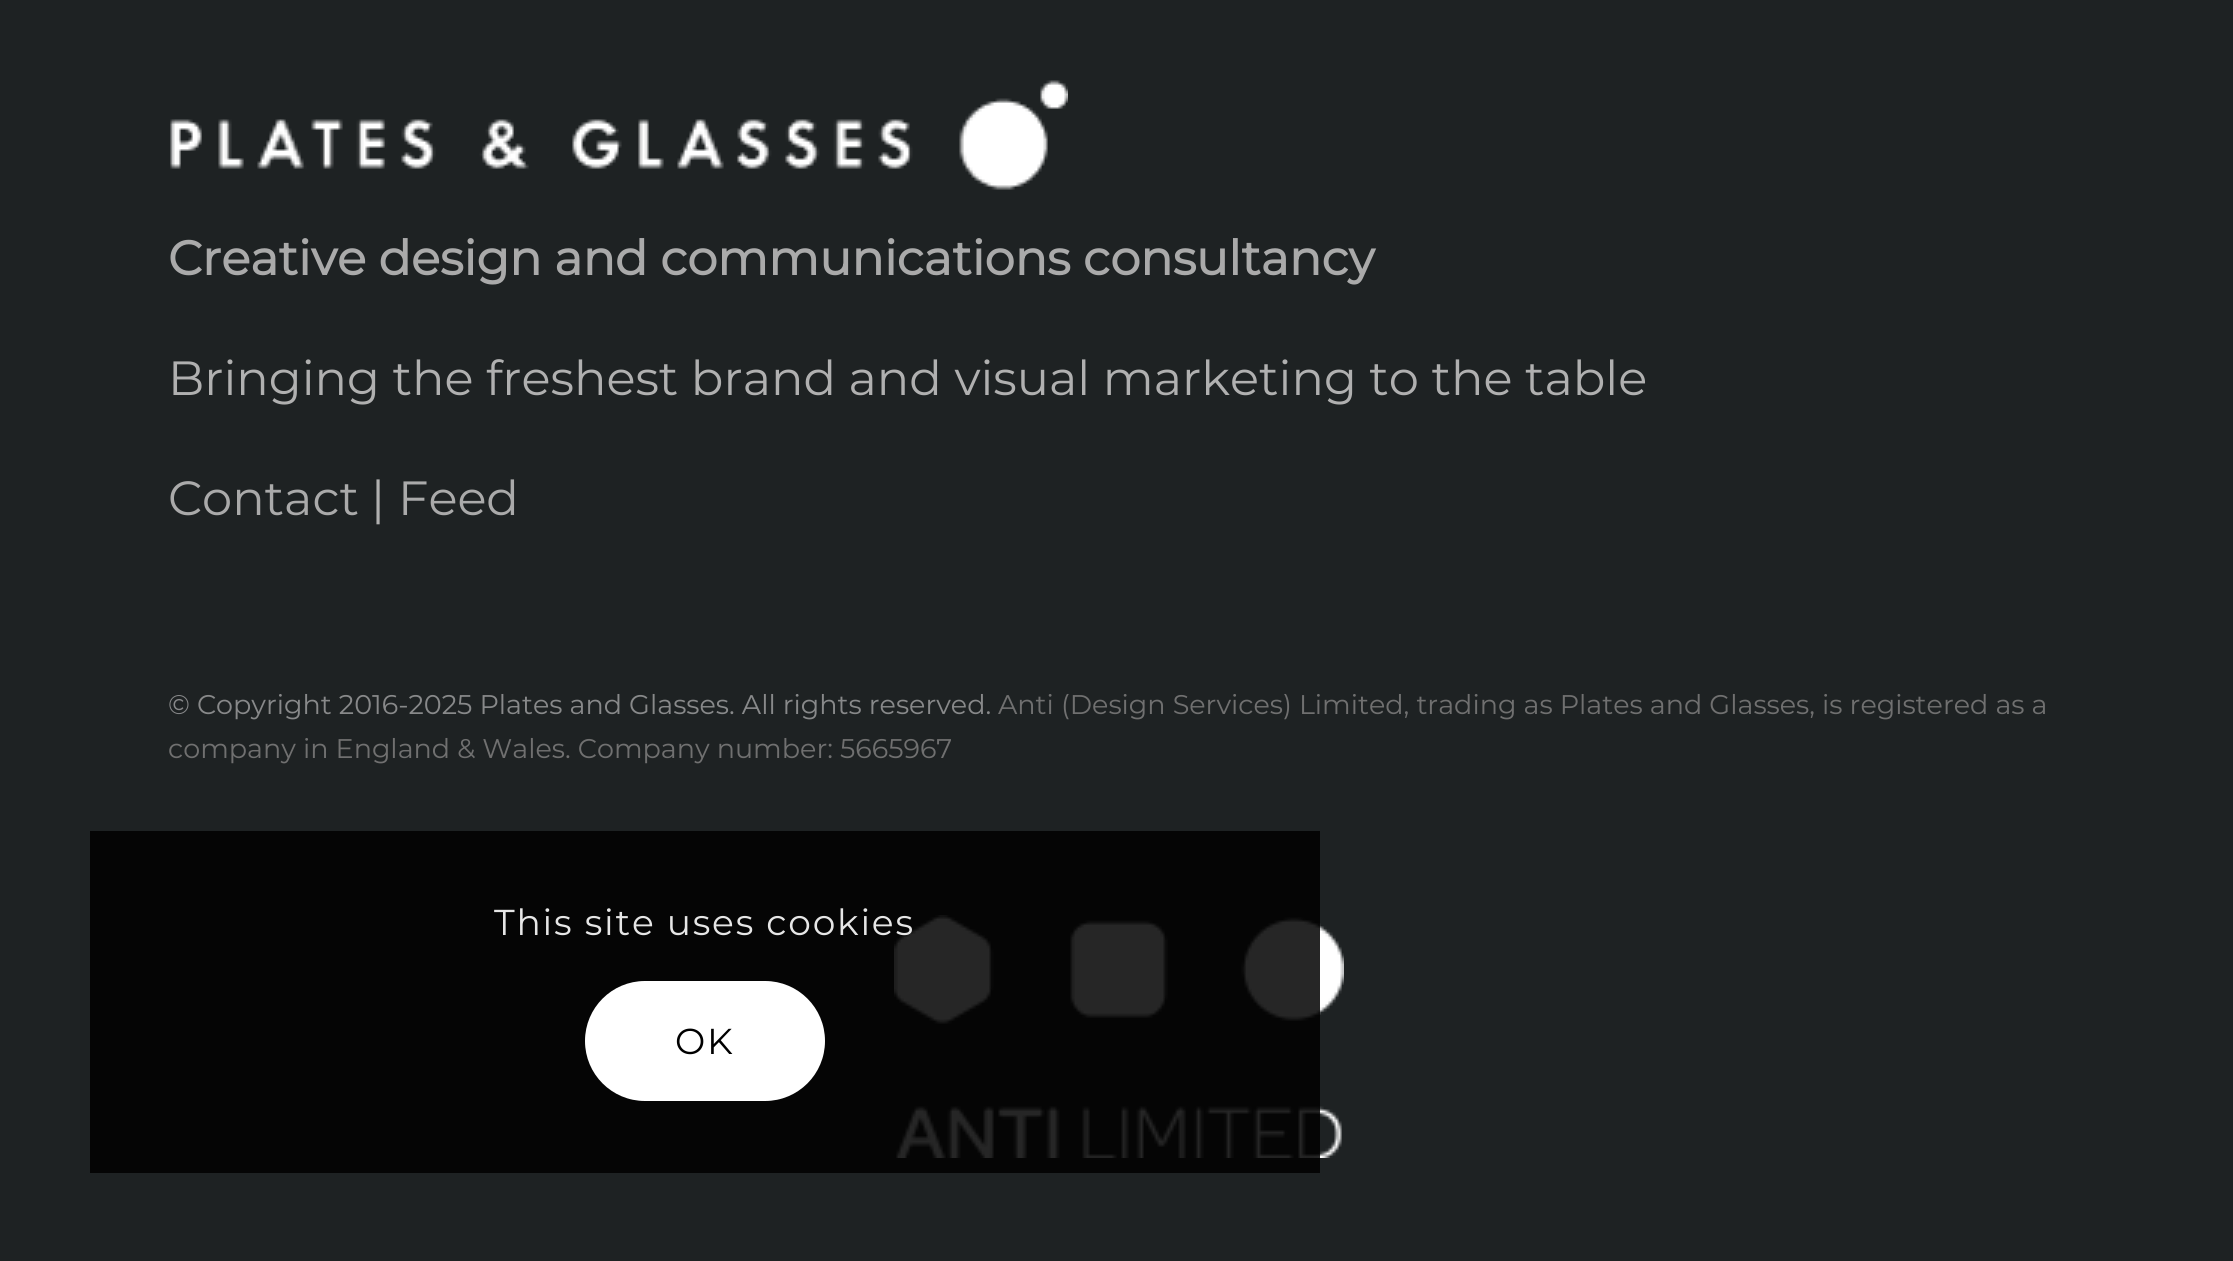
#include <cairo.h>
#include <math.h>
#include <stddef.h>


static void set_color(cairo_t *cr, unsigned color) {
    cairo_set_source_rgb(cr, (color >> 16) / 255.0, (color >> 8 & 255) / 255.0, (color & 255) / 255.0);
}

static void draw_text(cairo_t *cr, double x, double y, const char *s, const char *family, double size, int italic, int bold, unsigned color) {
    cairo_select_font_face(cr, family, italic ? CAIRO_FONT_SLANT_ITALIC : CAIRO_FONT_SLANT_NORMAL,
        bold ? CAIRO_FONT_WEIGHT_BOLD : CAIRO_FONT_WEIGHT_NORMAL);
    cairo_set_font_size(cr, size);
    set_color(cr, color);
    cairo_move_to(cr, x, y);
    cairo_show_text(cr, s);
}

static void draw_spaced(cairo_t *cr, double x, double y, const char *s, double letter, double word) {
    cairo_move_to(cr, x, y);
    while (*s) {
        char ch[5] = {0};
        int n = 0;
        do ch[n++] = *s++; while ((*s & 0xC0) == 0x80);
        cairo_show_text(cr, ch);
        cairo_rel_move_to(cr, letter + word * (*ch == ' '), 0);
    }
}

static void fill_rect(cairo_t *cr, double x, double y, double w, double h, unsigned color) {
    set_color(cr, color);
    cairo_rectangle(cr, x, y, w, h);
    cairo_fill(cr);
}

static void rounded_rect(cairo_t *cr, double x, double y, double w, double h, double r) {
    cairo_new_sub_path(cr);
    cairo_arc(cr, x + w - r, y + h - r, r, 0, M_PI / 2);
    cairo_arc(cr, x + r, y + h - r, r, M_PI / 2, M_PI);
    cairo_arc(cr, x + r, y + r, r, M_PI, 1.5 * M_PI);
    cairo_arc(cr, x + w - r, y + r, r, 1.5 * M_PI, 2 * M_PI);
    cairo_close_path(cr);
}

static void draw_image(cairo_t *cr, const char *path, double x, double y, double w, double h) {
    cairo_surface_t *image = cairo_image_surface_create_from_png(path);
    cairo_save(cr);
    cairo_set_source_surface(cr, image, x, y);
    cairo_rectangle(cr, x, y, w, h);
    cairo_fill(cr);
    cairo_restore(cr);
    cairo_surface_destroy(image);
}

int main(void) {
    cairo_surface_t *surface = cairo_image_surface_create(CAIRO_FORMAT_RGB24, 2233, 1261);
    cairo_t *cr = cairo_create(surface);
    cairo_font_options_t *options = cairo_font_options_create();
    cairo_font_options_set_hint_metrics(options, CAIRO_HINT_METRICS_OFF);
    cairo_font_options_set_hint_style(options, CAIRO_HINT_STYLE_NONE);
    cairo_set_font_options(cr, options);
    cairo_set_miter_limit(cr, 4);
    set_color(cr, 0x1E2223);
    cairo_paint(cr);
    fill_rect(cr, 90, 831, 1230, 342, 0x050505);
    draw_image(cr, "assets/img1.png", 170, 80, 898, 110);
    draw_text(cr, 168, 275, "Creative design and communications consultancy", "Montserrat", 48, 0, 1, 0xAAAAAA);
    draw_text(cr, 168, 395, "Bringing the freshest brand and visual marketing to the table", "Montserrat Thin", 48, 0, 0, 0xB0B0B0);
    draw_text(cr, 168, 515, "Contact", "Montserrat Thin", 48, 0, 0, 0xAAAAAA);
    draw_text(cr, 371, 515, "|", "Montserrat Thin", 48, 0, 0, 0xB0B0B0);
    draw_text(cr, 398, 515, "Feed", "Montserrat Thin", 48, 0, 0, 0xAAAAAA);
    draw_text(cr, 168, 714, "© Copyright 2016-2025 Plates and Glasses. All rights reserved.", "Montserrat Thin", 27, 0, 0, 0x88898A);
    draw_text(cr, 998, 714, "Anti (Design Services) Limited, trading as Plates and Glasses, is registered as a", "Montserrat Thin", 27, 0, 0, 0x707070);
    draw_text(cr, 168, 758, "company in England & Wales. Company number: 5665967", "Montserrat Thin", 27, 0, 0, 0x707070);
    draw_image(cr, "assets/img2.png", 894, 915, 450, 243);
    cairo_set_font_size(cr, 36);
    set_color(cr, 0xE6E6E6);
    draw_spaced(cr, 494, 935, "This site uses cookies", 1.8, 0);
    set_color(cr, 0xFFFFFF);
    rounded_rect(cr, 585, 981, 240, 120, 60);
    cairo_fill(cr);
    set_color(cr, 0x000000);
    draw_spaced(cr, 675, 1054, "OK", 1.8, 0);
    cairo_surface_write_to_png(surface, "output.png");
    cairo_font_options_destroy(options);
    cairo_destroy(cr);
    cairo_surface_destroy(surface);
    return 0;
}
